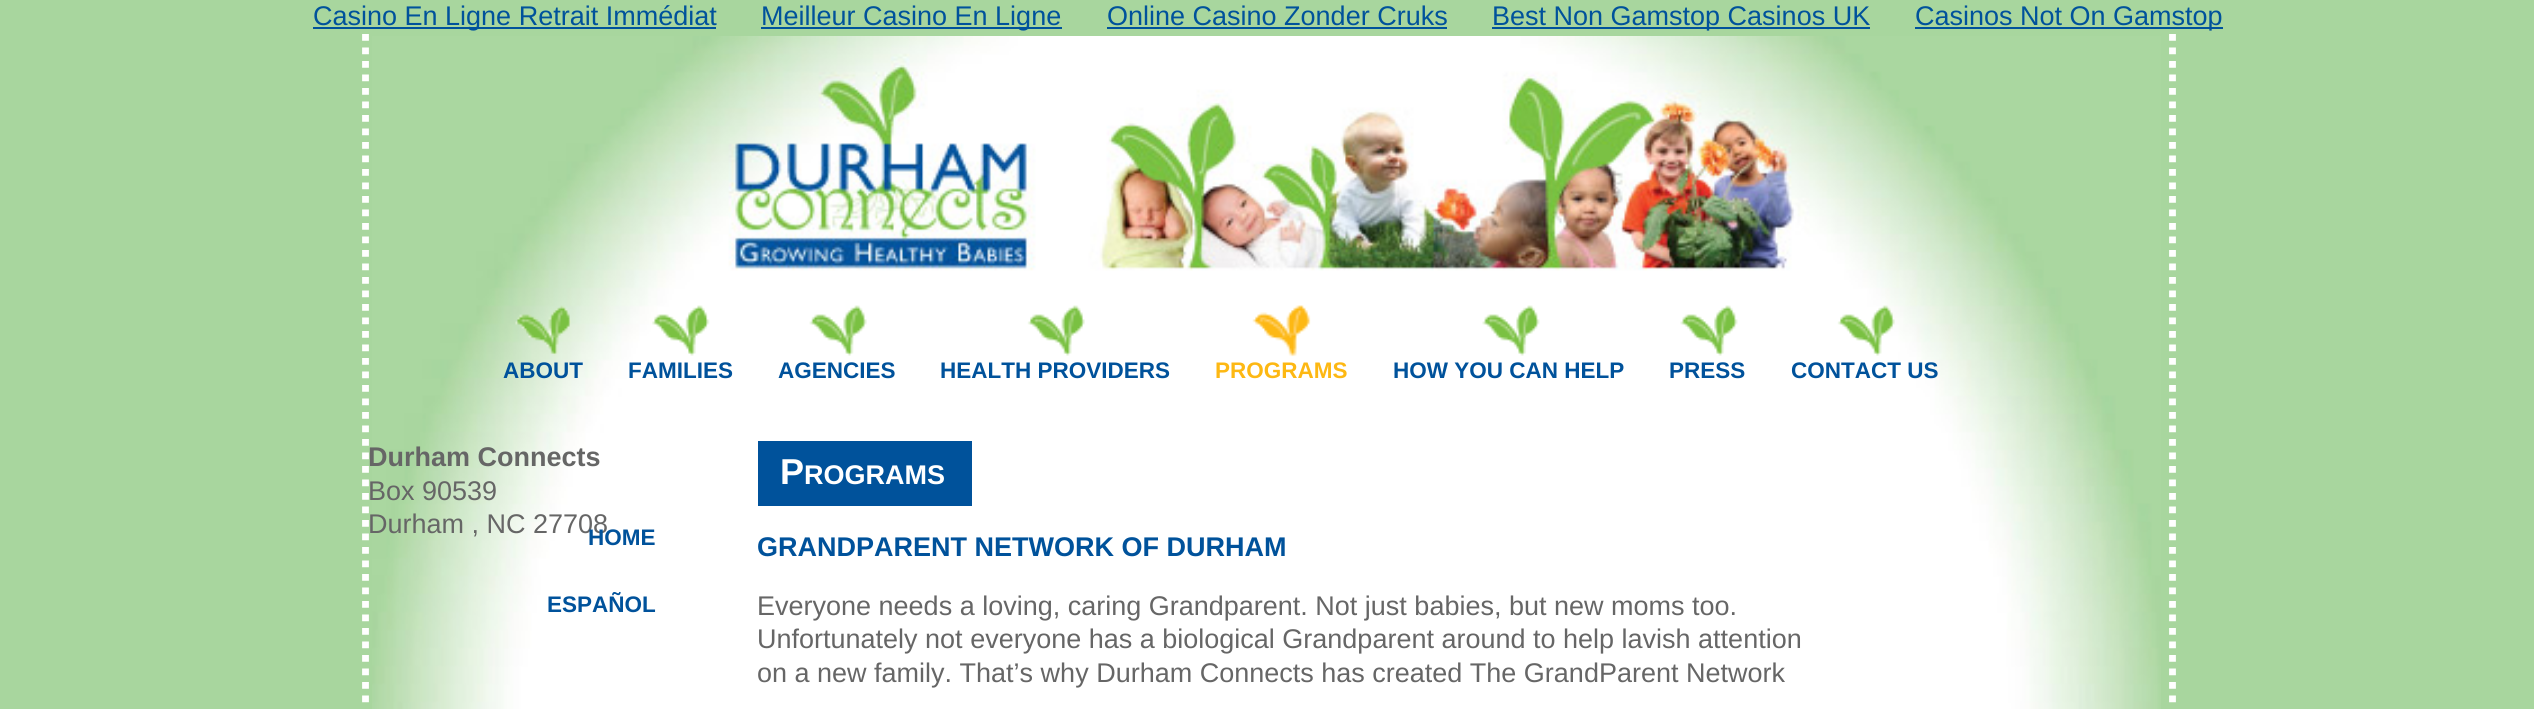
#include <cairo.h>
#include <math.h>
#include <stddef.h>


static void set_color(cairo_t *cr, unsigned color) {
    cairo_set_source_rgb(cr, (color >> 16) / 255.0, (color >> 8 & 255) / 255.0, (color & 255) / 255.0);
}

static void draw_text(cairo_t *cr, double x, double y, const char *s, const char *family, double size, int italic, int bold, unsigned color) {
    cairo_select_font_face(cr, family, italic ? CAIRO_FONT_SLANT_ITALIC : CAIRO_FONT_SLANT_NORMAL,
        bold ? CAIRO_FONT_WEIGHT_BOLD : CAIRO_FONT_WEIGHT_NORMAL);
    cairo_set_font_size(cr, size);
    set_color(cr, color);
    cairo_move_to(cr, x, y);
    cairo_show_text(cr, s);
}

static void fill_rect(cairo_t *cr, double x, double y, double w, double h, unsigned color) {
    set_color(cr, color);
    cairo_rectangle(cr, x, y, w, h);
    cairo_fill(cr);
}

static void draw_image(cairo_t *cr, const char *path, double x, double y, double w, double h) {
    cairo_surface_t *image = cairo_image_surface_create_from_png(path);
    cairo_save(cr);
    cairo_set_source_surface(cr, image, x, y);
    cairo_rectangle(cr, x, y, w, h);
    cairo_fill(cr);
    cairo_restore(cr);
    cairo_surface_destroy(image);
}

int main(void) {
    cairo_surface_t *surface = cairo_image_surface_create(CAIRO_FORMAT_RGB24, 2534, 709);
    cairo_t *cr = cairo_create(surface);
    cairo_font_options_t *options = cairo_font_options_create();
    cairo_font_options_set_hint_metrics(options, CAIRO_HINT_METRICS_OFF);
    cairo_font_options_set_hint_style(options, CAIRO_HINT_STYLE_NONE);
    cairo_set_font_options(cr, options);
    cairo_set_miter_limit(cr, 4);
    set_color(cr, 0xA8D69E);
    cairo_paint(cr);
    fill_rect(cr, 313, 27, 403, 2, 0x00529B);
    draw_text(cr, 313, 25, "Casino En Ligne Retrait Immédiat", "Liberation Sans", 27, 0, 0, 0x00529B);
    fill_rect(cr, 761, 27, 301, 2, 0x00529B);
    draw_text(cr, 761, 25, "Meilleur Casino En Ligne", "Liberation Sans", 27, 0, 0, 0x00529B);
    draw_text(cr, 1107, 25, "Online Casino Zonder Cruks", "Liberation Sans", 27, 0, 0, 0x00529B);
    fill_rect(cr, 1107, 27, 340, 2, 0x00529B);
    fill_rect(cr, 1492, 27, 378, 2, 0x00529B);
    draw_text(cr, 1492, 25, "Best Non Gamstop Casinos UK", "Liberation Sans", 27, 0, 0, 0x00529B);
    fill_rect(cr, 1915, 27, 308, 2, 0x00529B);
    draw_text(cr, 1915, 25, "Casinos Not On Gamstop", "Liberation Sans", 27, 0, 0, 0x00529B);
    draw_image(cr, "assets/img1.png", 372, 36, 1789, 673);
    cairo_new_path(cr);
    cairo_move_to(cr, 2172.5, 34);
    cairo_line_to(cr, 2172.5, 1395);
    set_color(cr, 0xFFFFFF);
    cairo_set_line_width(cr, 6.8);
    cairo_set_dash(cr, (double[]){6.75, 6.75}, 2, 0);
    cairo_stroke(cr);
    cairo_new_path(cr);
    cairo_move_to(cr, 365.5, 34);
    cairo_line_to(cr, 365.5, 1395);
    cairo_stroke(cr);
    draw_image(cr, "assets/img2.png", 515, 305, 56, 51);
    draw_text(cr, 503, 378, "ABOUT", "Liberation Sans", 22.5, 0, 1, 0x00529B);
    draw_image(cr, "assets/img3.png", 652, 305, 58, 51);
    draw_text(cr, 628, 378, "FAMILIES", "Liberation Sans", 22.5, 0, 1, 0x00529B);
    draw_image(cr, "assets/img4.png", 809, 305, 58, 51);
    draw_text(cr, 778, 378, "AGENCIES", "Liberation Sans", 22.5, 0, 1, 0x00529B);
    draw_image(cr, "assets/img5.png", 1027, 305, 58, 51);
    draw_text(cr, 940, 378, "HEALTH PROVIDERS", "Liberation Sans", 22.5, 0, 1, 0x00529B);
    draw_image(cr, "assets/img6.png", 1252, 305, 59, 52);
    draw_text(cr, 1215, 378, "PROGRAMS", "Liberation Sans", 22.5, 0, 1, 0xFDB813);
    draw_image(cr, "assets/img7.png", 1482, 305, 58, 51);
    draw_text(cr, 1393, 378, "HOW YOU CAN HELP", "Liberation Sans", 22.5, 0, 1, 0x00529B);
    draw_image(cr, "assets/img8.png", 1680, 305, 58, 51);
    draw_text(cr, 1669, 378, "PRESS", "Liberation Sans", 22.5, 0, 1, 0x00529B);
    draw_image(cr, "assets/img9.png", 1837, 305, 58, 51);
    draw_text(cr, 1791, 378, "CONTACT US", "Liberation Sans", 22.5, 0, 1, 0x00529B);
    draw_text(cr, 368, 466, "Durham Connects", "Liberation Sans", 27, 0, 1, 0x666666);
    draw_text(cr, 368, 500, "Box 90539", "Liberation Sans", 27, 0, 0, 0x666666);
    draw_text(cr, 368, 533, "Durham , NC 27708", "Liberation Sans", 27, 0, 0, 0x666666);
    fill_rect(cr, 758, 441, 214, 65, 0x00529B);
    draw_text(cr, 780, 484, "P", "Liberation Sans", 36, 0, 1, 0xFFFFFF);
    draw_text(cr, 804, 484, "ROGRAMS", "Liberation Sans", 27, 0, 1, 0xFFFFFF);
    draw_text(cr, 757, 556, "GRANDPARENT NETWORK OF DURHAM", "Liberation Sans", 27, 0, 1, 0x00529B);
    draw_text(cr, 757, 615, "Everyone needs a loving, caring Grandparent. Not just babies, but new moms too.", "Liberation Sans", 27, 0, 0, 0x666666);
    draw_text(cr, 757, 648, "Unfortunately not everyone has a biological Grandparent around to help lavish attention", "Liberation Sans", 27, 0, 0, 0x666666);
    draw_text(cr, 757, 682, "on a new family. That’s why Durham Connects has created The GrandParent Network", "Liberation Sans", 27, 0, 0, 0x666666);
    draw_text(cr, 588, 545, "HOME", "Liberation Sans", 22.5, 0, 1, 0x00529B);
    draw_text(cr, 547, 612, "ESPAÑOL", "Liberation Sans", 22.5, 0, 1, 0x00529B);
    cairo_surface_write_to_png(surface, "output.png");
    cairo_font_options_destroy(options);
    cairo_destroy(cr);
    cairo_surface_destroy(surface);
    return 0;
}
